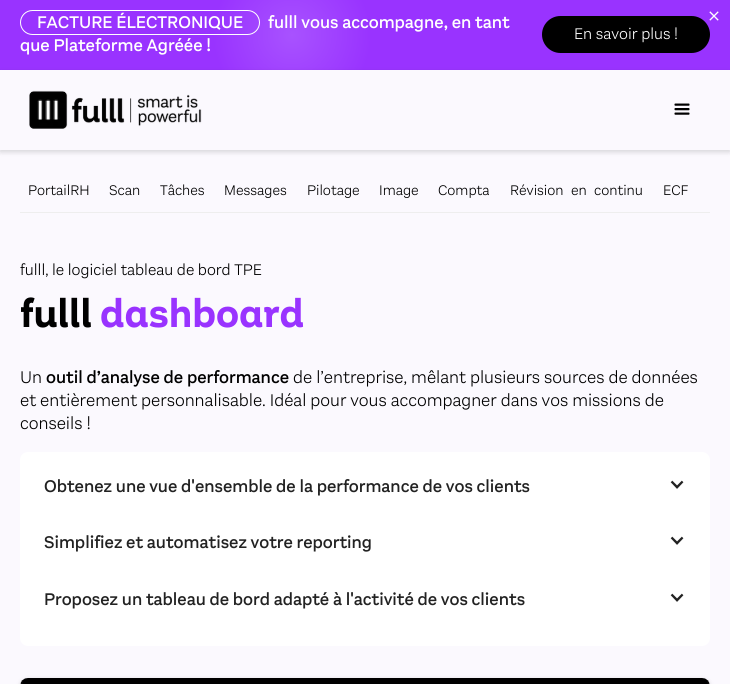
#include <cairo.h>
#include <math.h>
#include <stddef.h>


static void set_color(cairo_t *cr, unsigned color) {
    cairo_set_source_rgb(cr, (color >> 16) / 255.0, (color >> 8 & 255) / 255.0, (color & 255) / 255.0);
}

static void draw_text(cairo_t *cr, double x, double y, const char *s, const char *family, double size, int italic, int bold, unsigned color) {
    cairo_select_font_face(cr, family, italic ? CAIRO_FONT_SLANT_ITALIC : CAIRO_FONT_SLANT_NORMAL,
        bold ? CAIRO_FONT_WEIGHT_BOLD : CAIRO_FONT_WEIGHT_NORMAL);
    cairo_set_font_size(cr, size);
    set_color(cr, color);
    cairo_move_to(cr, x, y);
    cairo_show_text(cr, s);
}

static void fill_rect(cairo_t *cr, double x, double y, double w, double h, unsigned color) {
    set_color(cr, color);
    cairo_rectangle(cr, x, y, w, h);
    cairo_fill(cr);
}

static void rounded_rect(cairo_t *cr, double x, double y, double w, double h, double r) {
    cairo_new_sub_path(cr);
    cairo_arc(cr, x + w - r, y + h - r, r, 0, M_PI / 2);
    cairo_arc(cr, x + r, y + h - r, r, M_PI / 2, M_PI);
    cairo_arc(cr, x + r, y + r, r, M_PI, 1.5 * M_PI);
    cairo_arc(cr, x + w - r, y + r, r, 1.5 * M_PI, 2 * M_PI);
    cairo_close_path(cr);
}

static void draw_shadow(cairo_t *cr, double x, double y, double w, double h, double r, double blur, double alpha) {
    cairo_push_group_with_content(cr, CAIRO_CONTENT_ALPHA);
    cairo_set_operator(cr, CAIRO_OPERATOR_SOURCE);
    for (int i = 15; i >= -15 && fmin(w, h) + blur * i / 3 > 0; i -= 2) {
        double e = blur * i / 6;
        cairo_set_source_rgba(cr, 0, 0, 0, alpha * erfc((i - 1) / 8.5) / 2);
        rounded_rect(cr, x - e, y - e, w + 2 * e, h + 2 * e, fmax(0, fmin(r + e + blur * .6, fmin(w, h) / 2 + e)));
        cairo_fill(cr);
    }
    cairo_pattern_t *soft = cairo_pop_group(cr);
    cairo_mask(cr, soft);
    cairo_pattern_destroy(soft);
}

static void draw_image(cairo_t *cr, const char *path, double x, double y, double w, double h) {
    cairo_surface_t *image = cairo_image_surface_create_from_png(path);
    cairo_save(cr);
    cairo_set_source_surface(cr, image, x, y);
    cairo_rectangle(cr, x, y, w, h);
    cairo_fill(cr);
    cairo_restore(cr);
    cairo_surface_destroy(image);
}

int main(void) {
    cairo_surface_t *surface = cairo_image_surface_create(CAIRO_FORMAT_RGB24, 730, 684);
    cairo_t *cr = cairo_create(surface);
    cairo_font_options_t *options = cairo_font_options_create();
    cairo_font_options_set_hint_metrics(options, CAIRO_HINT_METRICS_OFF);
    cairo_font_options_set_hint_style(options, CAIRO_HINT_STYLE_NONE);
    cairo_set_font_options(cr, options);
    cairo_set_miter_limit(cr, 4);
    cairo_pattern_t *gradient;
    set_color(cr, 0xFFFFFF);
    cairo_paint(cr);
    gradient = cairo_pattern_create_radial(292, 35, 0, 292, 35, 439);
    cairo_pattern_add_color_stop_rgba(gradient, 0, 0.659, 0.322, 1, 1);
    cairo_pattern_add_color_stop_rgba(gradient, 0.18, 0.6, 0.2, 1, 1);
    cairo_set_source(cr, gradient);
    cairo_pattern_destroy(gradient);
    cairo_rectangle(cr, 0, 0, 730, 70);
    cairo_fill(cr);
    rounded_rect(cr, 20.5, 10.5, 239, 24, 12);
    set_color(cr, 0xFFFFFF);
    cairo_set_line_width(cr, 1);
    cairo_stroke(cr);
    draw_text(cr, 37, 28, "FACTURE ÉLECTRONIQUE", "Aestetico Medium", 17.6, 0, 0, 0xFFFFFF);
    draw_text(cr, 268, 28, "fulll vous accompagne, en tant", "Aestetico Medium", 17.6, 0, 0, 0xFFFFFF);
    draw_text(cr, 20, 51, "que Plateforme Agréée !", "Aestetico Medium", 17.6, 0, 0, 0xFFFFFF);
    set_color(cr, 0x000000);
    rounded_rect(cr, 542, 16, 168, 37, 18.5);
    cairo_fill(cr);
    draw_text(cr, 574, 39, "En savoir plus !", "Aestetico Light", 16, 0, 0, 0xFFFFFF);
    draw_image(cr, "assets/img1.png", 709, 11, 10, 10);
    fill_rect(cr, 0, 150, 730, 534, 0xFBF9FE);
    set_color(cr, 0x000000);
    draw_shadow(cr, 0, 72, 730, 80, 0, 2.5, 0.15);
    fill_rect(cr, 0, 70, 730, 80, 0xFBF9FE);
    draw_image(cr, "assets/img2.png", 29, 90, 173, 39);
    draw_image(cr, "assets/img3.png", 674, 103, 16, 12);
    fill_rect(cr, 20, 212, 690, 1, 0xEEEEEE);
    draw_text(cr, 28, 195, "PortailRH", "Aestetico Light", 14.5, 0, 0, 0x000000);
    draw_text(cr, 109, 195, "Scan", "Aestetico Light", 14.5, 0, 0, 0x000000);
    draw_text(cr, 160, 195, "Tâches", "Aestetico Light", 14.5, 0, 0, 0x000000);
    draw_text(cr, 224, 195, "Messages", "Aestetico Light", 14.5, 0, 0, 0x000000);
    draw_text(cr, 307, 195, "Pilotage", "Aestetico Light", 14.5, 0, 0, 0x000000);
    draw_text(cr, 379, 195, "Image", "Aestetico Light", 14.5, 0, 0, 0x000000);
    draw_text(cr, 438, 195, "Compta", "Aestetico Light", 14.5, 0, 0, 0x000000);
    draw_text(cr, 510, 195, "Révision", "Aestetico Light", 14.5, 0, 0, 0x000000);
    draw_text(cr, 571, 195, "en", "Aestetico Light", 14.5, 0, 0, 0x000000);
    draw_text(cr, 594, 195, "continu", "Aestetico Light", 14.5, 0, 0, 0x000000);
    draw_text(cr, 663, 195, "ECF", "Aestetico Light", 14.5, 0, 0, 0x000000);
    draw_text(cr, 20, 275, "fulll, le logiciel tableau de bord TPE", "Aestetico Light", 16, 0, 0, 0x000000);
    draw_text(cr, 20, 327, "fulll", "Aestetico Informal", 40, 0, 1, 0x000000);
    draw_text(cr, 100, 327, "dashboard", "Aestetico Informal", 40, 0, 1, 0x9933FF);
    draw_text(cr, 20, 383, "Un", "Aestetico Light", 17.6, 0, 0, 0x000000);
    draw_text(cr, 46, 383, "outil d’analyse de performance", "Aestetico Medium", 17.6, 0, 0, 0x000000);
    draw_text(cr, 293, 383, "de l’entreprise, mêlant plusieurs sources de données", "Aestetico Light", 17.6, 0, 0, 0x000000);
    draw_text(cr, 20, 406, "et entièrement personnalisable. Idéal pour vous accompagner dans vos missions de", "Aestetico Light", 17.6, 0, 0, 0x000000);
    draw_text(cr, 20, 429, "conseils !", "Aestetico Light", 17.6, 0, 0, 0x000000);
    set_color(cr, 0xFFFFFF);
    rounded_rect(cr, 20, 452, 690, 194, 8);
    cairo_fill(cr);
    draw_text(cr, 44, 492, "Obtenez une vue d'ensemble de la performance de vos clients", "Aestetico Medium", 17.6, 0, 0, 0x222222);
    draw_image(cr, "assets/img4.png", 670, 480, 14, 9);
    draw_text(cr, 44, 548, "Simplifiez et automatisez votre reporting", "Aestetico Medium", 17.6, 0, 0, 0x222222);
    draw_image(cr, "assets/img4.png", 670, 536, 14, 9);
    draw_text(cr, 44, 605, "Proposez un tableau de bord adapté à l'activité de vos clients", "Aestetico Medium", 17.6, 0, 0, 0x222222);
    draw_image(cr, "assets/img4.png", 670, 593, 14, 9);
    set_color(cr, 0x000000);
    draw_shadow(cr, 20, 680, 690, 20, 8, 2.5, 0.2);
    draw_image(cr, "assets/img5.png", 20, 678, 690, 6);
    cairo_surface_write_to_png(surface, "output.png");
    cairo_font_options_destroy(options);
    cairo_destroy(cr);
    cairo_surface_destroy(surface);
    return 0;
}
